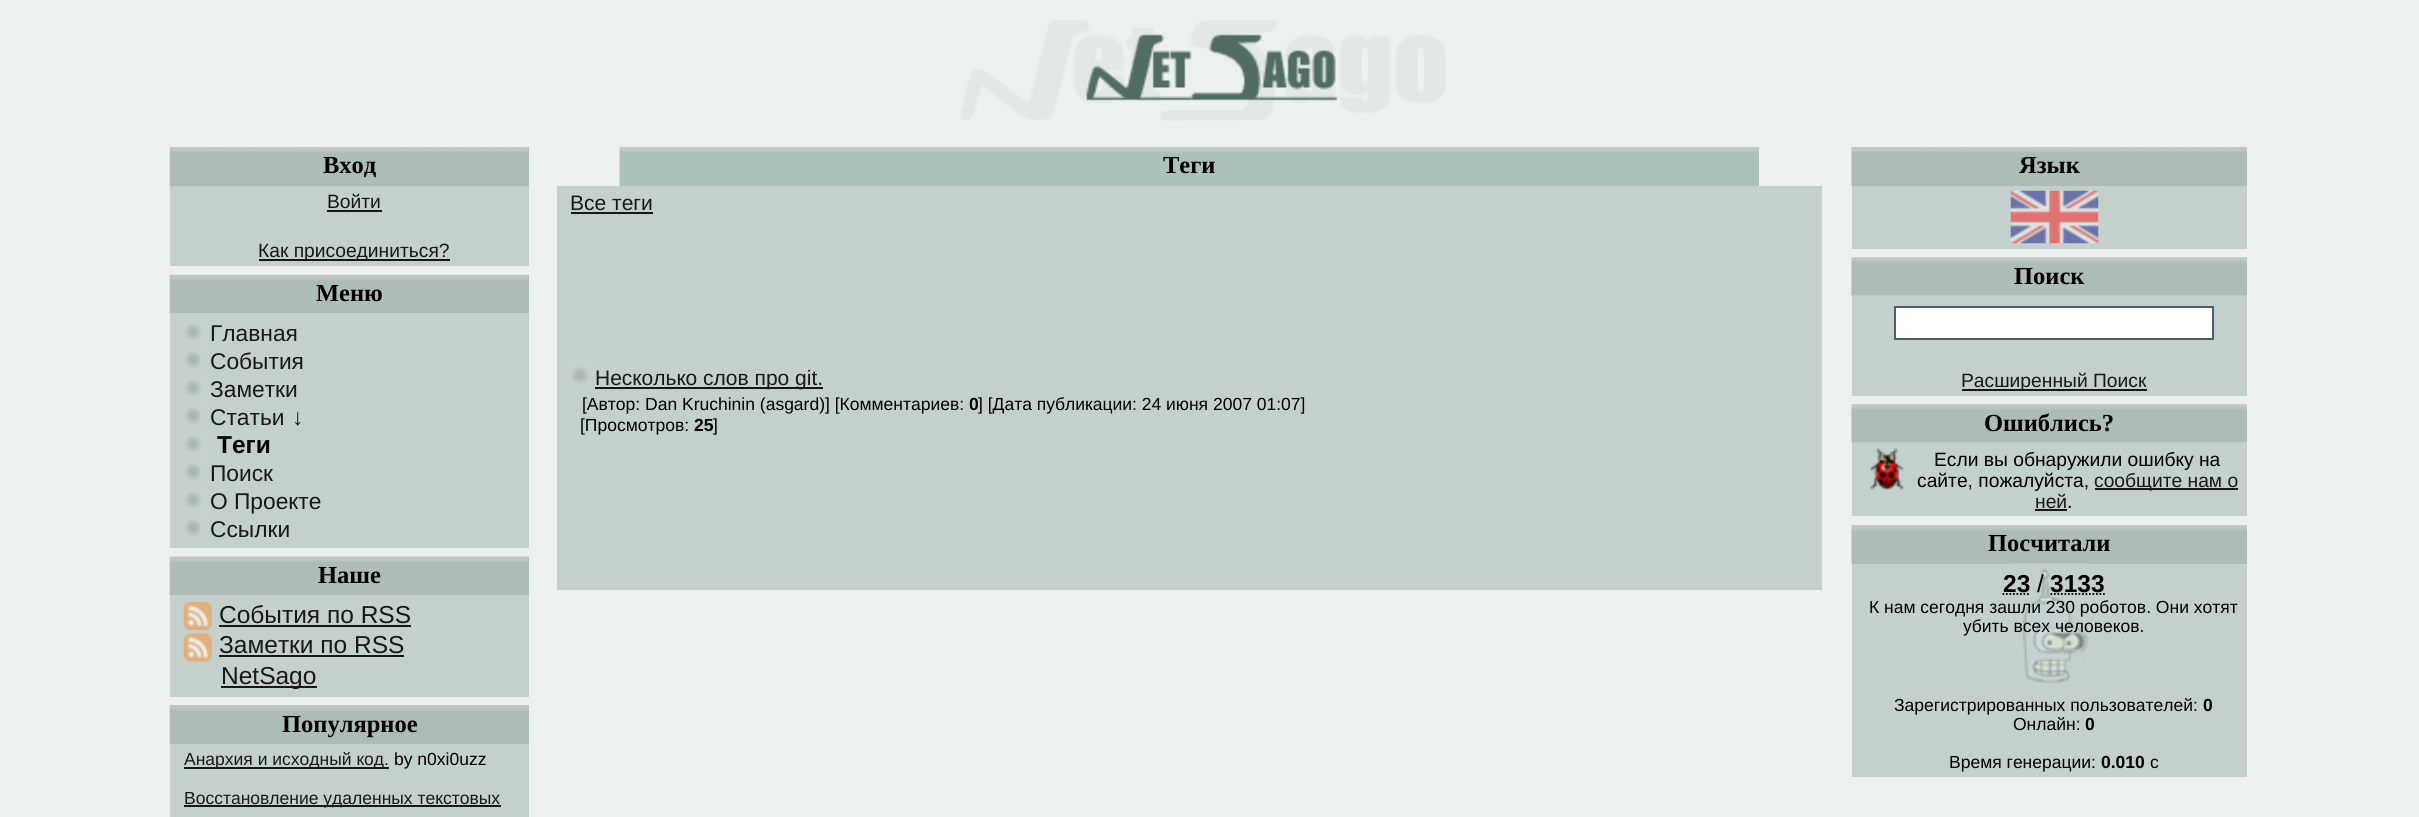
#include <cairo.h>
#include <math.h>
#include <stddef.h>


static void set_color(cairo_t *cr, unsigned color) {
    cairo_set_source_rgb(cr, (color >> 16) / 255.0, (color >> 8 & 255) / 255.0, (color & 255) / 255.0);
}

static void draw_text(cairo_t *cr, double x, double y, const char *s, const char *family, double size, int italic, int bold, unsigned color) {
    cairo_select_font_face(cr, family, italic ? CAIRO_FONT_SLANT_ITALIC : CAIRO_FONT_SLANT_NORMAL,
        bold ? CAIRO_FONT_WEIGHT_BOLD : CAIRO_FONT_WEIGHT_NORMAL);
    cairo_set_font_size(cr, size);
    set_color(cr, color);
    cairo_move_to(cr, x, y);
    cairo_show_text(cr, s);
}

static void fill_rect(cairo_t *cr, double x, double y, double w, double h, unsigned color) {
    set_color(cr, color);
    cairo_rectangle(cr, x, y, w, h);
    cairo_fill(cr);
}

static void draw_image(cairo_t *cr, const char *path, double x, double y, double w, double h) {
    cairo_surface_t *image = cairo_image_surface_create_from_png(path);
    cairo_save(cr);
    cairo_set_source_surface(cr, image, x, y);
    cairo_rectangle(cr, x, y, w, h);
    cairo_fill(cr);
    cairo_restore(cr);
    cairo_surface_destroy(image);
}

int main(void) {
    cairo_surface_t *surface = cairo_image_surface_create(CAIRO_FORMAT_RGB24, 2419, 817);
    cairo_t *cr = cairo_create(surface);
    cairo_font_options_t *options = cairo_font_options_create();
    cairo_font_options_set_hint_metrics(options, CAIRO_HINT_METRICS_OFF);
    cairo_font_options_set_hint_style(options, CAIRO_HINT_STYLE_NONE);
    cairo_set_font_options(cr, options);
    cairo_set_miter_limit(cr, 4);
    set_color(cr, 0xECF0EF);
    cairo_paint(cr);
    draw_image(cr, "assets/img1.png", 961, 20, 485, 101);
    fill_rect(cr, 170, 147, 359, 39, 0xAEBCB8);
    draw_image(cr, "assets/img2.png", 169, 147, 360, 39);
    draw_text(cr, 323, 173, "Вход", "Liberation Serif", 24.5, 0, 1, 0x000000);
    fill_rect(cr, 170, 186, 359, 80, 0xC3D0CC);
    draw_text(cr, 327, 208, "Войти", "Liberation Sans", 19.25, 0, 0, 0x191818);
    fill_rect(cr, 327, 210, 55, 2, 0x191818);
    fill_rect(cr, 259, 259, 191, 2, 0x191818);
    draw_text(cr, 258, 257, "Как присоединиться?", "Liberation Sans", 19.25, 0, 0, 0x191818);
    fill_rect(cr, 528, 275, 1, 38, 0xAEBCB8);
    draw_image(cr, "assets/img3.png", 169, 274, 360, 40);
    draw_text(cr, 316, 301, "Меню", "Liberation Serif", 24.5, 0, 1, 0x000000);
    fill_rect(cr, 170, 313, 359, 235, 0xC3D0CC);
    draw_image(cr, "assets/img4.png", 184, 322, 19, 19);
    draw_text(cr, 210, 341, "Главная", "Liberation Sans", 22.75, 0, 0, 0x191818);
    draw_image(cr, "assets/img4.png", 184, 350, 19, 19);
    draw_text(cr, 210, 369, "События", "Liberation Sans", 22.75, 0, 0, 0x191818);
    draw_image(cr, "assets/img4.png", 184, 378, 19, 19);
    draw_text(cr, 210, 397, "Заметки", "Liberation Sans", 22.75, 0, 0, 0x191818);
    draw_image(cr, "assets/img4.png", 184, 406, 19, 19);
    draw_text(cr, 210, 425, "Статьи", "Liberation Sans", 22.75, 0, 0, 0x191818);
    draw_text(cr, 292, 425, "↓", "Liberation Sans", 22.75, 0, 0, 0x191818);
    draw_image(cr, "assets/img4.png", 184, 434, 19, 19);
    draw_text(cr, 217, 453, "Теги", "Liberation Sans", 24.5, 0, 1, 0x000000);
    draw_image(cr, "assets/img4.png", 184, 462, 19, 19);
    draw_text(cr, 210, 481, "Поиск", "Liberation Sans", 22.75, 0, 0, 0x191818);
    draw_image(cr, "assets/img4.png", 184, 490, 19, 19);
    draw_text(cr, 210, 509, "О Проекте", "Liberation Sans", 22.75, 0, 0, 0x191818);
    draw_image(cr, "assets/img4.png", 184, 518, 19, 19);
    draw_text(cr, 210, 537, "Ссылки", "Liberation Sans", 22.75, 0, 0, 0x191818);
    fill_rect(cr, 528, 557, 1, 38, 0xAEBCB8);
    draw_image(cr, "assets/img5.png", 169, 556, 360, 39);
    draw_text(cr, 318, 583, "Наше", "Liberation Serif", 24.5, 0, 1, 0x000000);
    fill_rect(cr, 170, 595, 359, 102, 0xC3D0CC);
    draw_image(cr, "assets/img6.png", 183, 602, 29, 28);
    draw_text(cr, 219, 623, "События по RSS", "Liberation Sans", 24.5, 0, 0, 0x191818);
    fill_rect(cr, 219, 625, 192, 2, 0x191818);
    draw_image(cr, "assets/img7.png", 183, 633, 29, 29);
    draw_text(cr, 219, 653, "Заметки по RSS", "Liberation Sans", 24.5, 0, 0, 0x191818);
    fill_rect(cr, 219, 655, 185, 2, 0x191818);
    fill_rect(cr, 221, 686, 96, 2, 0x191818);
    draw_text(cr, 221, 684, "NetSago", "Liberation Sans", 24.5, 0, 0, 0x191818);
    fill_rect(cr, 170, 705, 359, 39, 0xAEBCB8);
    draw_image(cr, "assets/img8.png", 169, 705, 360, 39);
    draw_text(cr, 282, 732, "Популярное", "Liberation Serif", 24.5, 0, 1, 0x000000);
    fill_rect(cr, 170, 744, 359, 73, 0xC3D0CC);
    fill_rect(cr, 184, 767, 205, 2, 0x191818);
    draw_text(cr, 184, 765, "Анархия и исходный код.", "Liberation Sans", 17.5, 0, 0, 0x191818);
    draw_text(cr, 394, 765, "by n0xi0uzz", "Liberation Sans", 17.5, 0, 0, 0x000000);
    fill_rect(cr, 184, 805, 317, 2, 0x191818);
    draw_text(cr, 184, 804, "Восстановление удаленных текстовых", "Liberation Sans", 17.5, 0, 0, 0x191818);
    fill_rect(cr, 620, 147, 1139, 39, 0xACC1BB);
    draw_image(cr, "assets/img9.png", 619, 147, 1140, 39);
    draw_text(cr, 1163, 173, "Теги", "Liberation Serif", 24.5, 0, 1, 0x000000);
    fill_rect(cr, 557, 186, 1265, 404, 0xC3D0CC);
    draw_text(cr, 570, 210, "Все теги", "Liberation Sans", 21, 0, 0, 0x191818);
    fill_rect(cr, 571, 212, 82, 2, 0x191818);
    draw_image(cr, "assets/img10.png", 571, 366, 18, 19);
    fill_rect(cr, 595, 387, 228, 2, 0x191818);
    draw_text(cr, 595, 385, "Несколько слов про git.", "Liberation Sans", 21, 0, 0, 0x191818);
    draw_text(cr, 582, 410, "[Автор: Dan Kruchinin (asgard)] [Комментариев:", "Liberation Sans", 17.5, 0, 0, 0x000000);
    draw_text(cr, 969, 410, "0", "Liberation Sans", 17.5, 0, 1, 0x000000);
    draw_text(cr, 978, 410, "] [Дата публикации: 24 июня 2007 01:07]", "Liberation Sans", 17.5, 0, 0, 0x000000);
    draw_text(cr, 580, 431, "[Просмотров:", "Liberation Sans", 17.5, 0, 0, 0x000000);
    draw_text(cr, 694, 431, "25", "Liberation Sans", 17.5, 0, 1, 0x000000);
    draw_text(cr, 713, 431, "]", "Liberation Sans", 17.5, 0, 0, 0x000000);
    fill_rect(cr, 1852, 185, 395, 1, 0xAEBCB8);
    draw_image(cr, "assets/img11.png", 1851, 147, 396, 39);
    draw_text(cr, 2019, 173, "Язык", "Liberation Serif", 24.5, 0, 1, 0x000000);
    fill_rect(cr, 1852, 186, 395, 63, 0xC3D0CC);
    draw_image(cr, "assets/img12.png", 2010, 190, 89, 54);
    draw_image(cr, "assets/img13.png", 1851, 257, 396, 39);
    draw_text(cr, 2014, 284, "Поиск", "Liberation Serif", 24.5, 0, 1, 0x000000);
    fill_rect(cr, 1852, 296, 395, 100, 0xC3D0CC);
    set_color(cr, 0xFFFFFF);
    cairo_rectangle(cr, 1895, 307, 318, 32);
    cairo_fill_preserve(cr);
    set_color(cr, 0x4D5D6D);
    cairo_stroke(cr);
    fill_rect(cr, 1962, 389, 185, 2, 0x191818);
    draw_text(cr, 1961, 387, "Расширенный Поиск", "Liberation Sans", 19.25, 0, 0, 0x191818);
    draw_image(cr, "assets/img14.png", 1851, 404, 396, 39);
    draw_text(cr, 1984, 431, "Ошиблись?", "Liberation Serif", 24.5, 0, 1, 0x000000);
    fill_rect(cr, 1852, 443, 395, 73, 0xC3D0CC);
    draw_image(cr, "assets/img15.png", 1870, 448, 35, 42);
    draw_text(cr, 1934, 466, "Если вы обнаружили ошибку на", "Liberation Sans", 19.25, 0, 0, 0x000000);
    draw_text(cr, 1917, 487, "сайте, пожалуйста,", "Liberation Sans", 19.25, 0, 0, 0x000000);
    fill_rect(cr, 2095, 488, 143, 2, 0x191818);
    draw_text(cr, 2094, 487, "сообщите нам о", "Liberation Sans", 19.25, 0, 0, 0x191818);
    draw_text(cr, 2035, 508, "ней", "Liberation Sans", 19.25, 0, 0, 0x191818);
    fill_rect(cr, 2035, 509, 32, 2, 0x191818);
    draw_text(cr, 2067, 508, ".", "Liberation Sans", 19.25, 0, 0, 0x000000);
    fill_rect(cr, 1852, 563, 395, 1, 0xAEBCB8);
    draw_image(cr, "assets/img16.png", 1851, 525, 396, 39);
    draw_text(cr, 1988, 551, "Посчитали", "Liberation Serif", 24.5, 0, 1, 0x000000);
    fill_rect(cr, 1852, 564, 395, 213, 0xC3D0CC);
    draw_image(cr, "assets/img17.png", 2011, 563, 79, 121);
    draw_text(cr, 2003, 592, "23", "Liberation Sans", 24.5, 0, 1, 0x000000);
    cairo_new_path(cr);
    cairo_move_to(cr, 2002.5, 594);
    cairo_line_to(cr, 2030, 594);
    cairo_set_line_width(cr, 1.8);
    cairo_set_dash(cr, (double[]){1.75, 1.75}, 2, 0);
    cairo_stroke(cr);
    draw_text(cr, 2037, 592, "/", "Liberation Sans", 24.5, 0, 0, 0x000000);
    draw_text(cr, 2050, 592, "3133", "Liberation Sans", 24.5, 0, 1, 0x000000);
    cairo_new_path(cr);
    cairo_move_to(cr, 2050.5, 594);
    cairo_line_to(cr, 2105, 594);
    cairo_stroke(cr);
    draw_text(cr, 1869, 613, "К нам сегодня зашли 230 роботов. Они хотят", "Liberation Sans", 17.5, 0, 0, 0x000000);
    draw_text(cr, 1963, 632, "убить всех человеков.", "Liberation Sans", 17.5, 0, 0, 0x000000);
    draw_text(cr, 1894, 711, "Зарегистрированных пользователей:", "Liberation Sans", 17.5, 0, 0, 0x000000);
    draw_text(cr, 2203, 711, "0", "Liberation Sans", 17.5, 0, 1, 0x000000);
    draw_text(cr, 2013, 730, "Онлайн:", "Liberation Sans", 17.5, 0, 0, 0x000000);
    draw_text(cr, 2085, 730, "0", "Liberation Sans", 17.5, 0, 1, 0x000000);
    draw_text(cr, 1949, 768, "Время генерации:", "Liberation Sans", 17.5, 0, 0, 0x000000);
    draw_text(cr, 2101, 768, "0.010", "Liberation Sans", 17.5, 0, 1, 0x000000);
    draw_text(cr, 2150, 768, "с", "Liberation Sans", 17.5, 0, 0, 0x000000);
    cairo_surface_write_to_png(surface, "output.png");
    cairo_font_options_destroy(options);
    cairo_destroy(cr);
    cairo_surface_destroy(surface);
    return 0;
}
